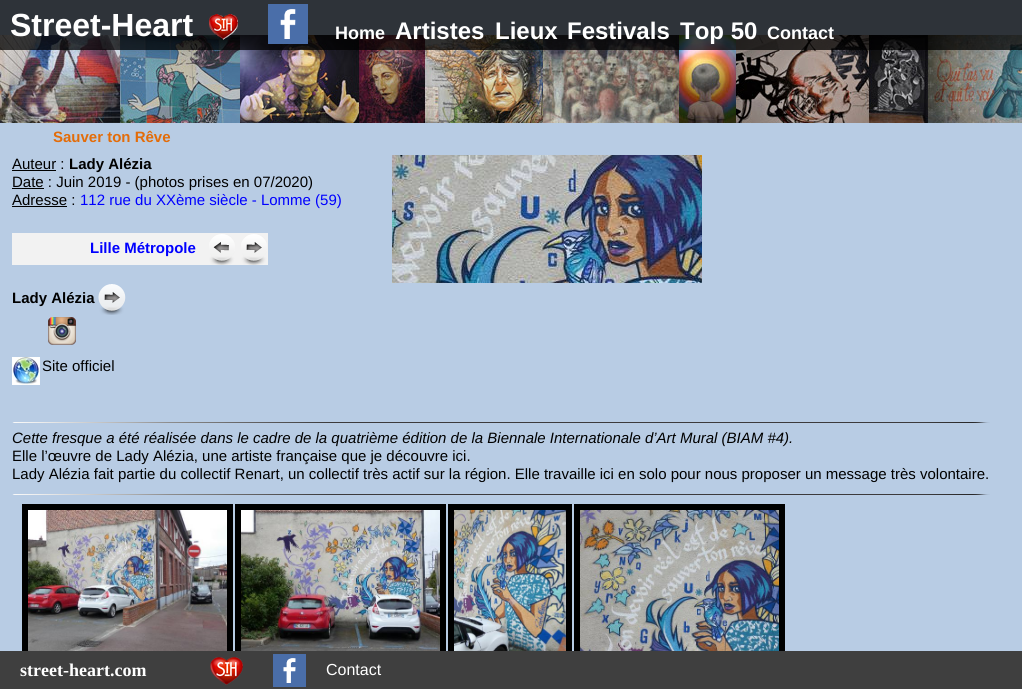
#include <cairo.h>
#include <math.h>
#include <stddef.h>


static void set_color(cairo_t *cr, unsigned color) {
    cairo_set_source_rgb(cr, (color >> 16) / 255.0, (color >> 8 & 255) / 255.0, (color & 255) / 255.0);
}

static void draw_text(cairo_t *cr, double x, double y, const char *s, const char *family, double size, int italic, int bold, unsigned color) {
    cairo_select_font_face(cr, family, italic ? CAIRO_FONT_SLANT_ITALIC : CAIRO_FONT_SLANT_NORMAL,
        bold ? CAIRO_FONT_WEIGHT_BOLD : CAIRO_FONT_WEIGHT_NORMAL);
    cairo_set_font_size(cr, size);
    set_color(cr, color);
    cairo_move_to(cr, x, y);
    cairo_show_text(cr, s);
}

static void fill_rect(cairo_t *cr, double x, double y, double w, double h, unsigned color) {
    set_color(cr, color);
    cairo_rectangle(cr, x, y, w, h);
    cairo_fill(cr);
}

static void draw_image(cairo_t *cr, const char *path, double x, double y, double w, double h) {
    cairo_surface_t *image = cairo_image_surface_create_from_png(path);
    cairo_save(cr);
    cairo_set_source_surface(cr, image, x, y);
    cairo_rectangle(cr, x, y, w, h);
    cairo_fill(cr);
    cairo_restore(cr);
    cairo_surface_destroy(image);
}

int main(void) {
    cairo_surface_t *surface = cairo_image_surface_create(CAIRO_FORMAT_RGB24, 1022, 689);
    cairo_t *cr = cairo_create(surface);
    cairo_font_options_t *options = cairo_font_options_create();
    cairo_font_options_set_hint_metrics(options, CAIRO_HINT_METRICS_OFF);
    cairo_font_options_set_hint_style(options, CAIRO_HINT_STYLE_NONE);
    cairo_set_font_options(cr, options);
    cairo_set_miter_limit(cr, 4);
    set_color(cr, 0xB8CCE4);
    cairo_paint(cr);
    draw_image(cr, "assets/img3.png", 0, 35, 1022, 88);
    cairo_set_source_rgba(cr, 0, 0, 0, 0.75);
    cairo_rectangle(cr, 0, 0, 1022, 50);
    cairo_fill(cr);
    draw_text(cr, 10, 36, "Street-Heart", "Liberation Sans", 32, 0, 1, 0xFFFFFF);
    draw_image(cr, "assets/img1.png", 209, 14, 29, 26);
    draw_image(cr, "assets/img2.png", 268, 4, 40, 40);
    draw_text(cr, 335, 39, "Home", "Liberation Sans", 18, 0, 1, 0xFFFFFF);
    draw_text(cr, 395, 39, "Artistes", "Liberation Sans", 24, 0, 1, 0xFFFFFF);
    draw_text(cr, 495, 39, "Lieux", "Liberation Sans", 24, 0, 1, 0xFFFFFF);
    draw_text(cr, 567, 39, "Festivals", "Liberation Sans", 24, 0, 1, 0xFFFFFF);
    draw_text(cr, 680, 39, "Top 50", "Liberation Sans", 24, 0, 1, 0xFFFFFF);
    draw_text(cr, 767, 39, "Contact", "Liberation Sans", 18, 0, 1, 0xFFFFFF);
    draw_text(cr, 53, 142, "Sauver ton Rêve", "Liberation Sans", 15, 0, 1, 0xE36C09);
    draw_text(cr, 12, 169, "Auteur :", "Liberation Sans", 15, 0, 0, 0x000000);
    fill_rect(cr, 12, 170, 44, 1, 0x000000);
    draw_text(cr, 69, 169, "Lady Alézia", "Liberation Sans", 15, 0, 1, 0x000000);
    fill_rect(cr, 12, 188, 32, 1, 0x000000);
    draw_text(cr, 12, 187, "Date : Juin 2019 - (photos prises en 07/2020)", "Liberation Sans", 15, 0, 0, 0x000000);
    draw_text(cr, 12, 205, "Adresse :", "Liberation Sans", 15, 0, 0, 0x000000);
    fill_rect(cr, 12, 206, 55, 1, 0x000000);
    draw_text(cr, 80, 205, "112 rue du XXème siècle - Lomme (59)", "Liberation Sans", 15, 0, 0, 0x0000FF);
    fill_rect(cr, 12, 233, 256, 32, 0xF2F2F2);
    draw_text(cr, 90, 253, "Lille Métropole", "Liberation Sans", 15, 0, 1, 0x0000FF);
    draw_image(cr, "assets/img4.png", 209, 234, 26, 31);
    draw_image(cr, "assets/img5.png", 241, 234, 26, 31);
    draw_image(cr, "assets/img6.png", 392, 155, 310, 128);
    draw_text(cr, 12, 303, "Lady Alézia", "Liberation Sans", 15, 0, 1, 0x000000);
    draw_image(cr, "assets/img7.png", 98, 284, 28, 31);
    draw_image(cr, "assets/img8.png", 48, 317, 28, 28);
    draw_image(cr, "assets/img9.png", 12, 357, 28, 28);
    draw_text(cr, 42, 371, "Site officiel", "Liberation Sans", 15, 0, 0, 0x000000);
    draw_image(cr, "assets/img10.png", 12, 422, 319, 1);
    fill_rect(cr, 331, 422, 595, 1, 0x3C3A3C);
    draw_image(cr, "assets/img11.png", 926, 422, 64, 1);
    draw_text(cr, 12, 443, "Cette fresque a été réalisée dans le cadre de la quatrième édition de la Biennale Internationale d’Art Mural (BIAM #4).", "Liberation Sans", 15, 1, 0, 0x000000);
    draw_text(cr, 12, 461, "Elle l’œuvre de Lady Alézia, une artiste française que je découvre ici.", "Liberation Sans", 15, 0, 0, 0x000000);
    draw_text(cr, 12, 479, "Lady Alézia fait partie du collectif Renart, un collectif très actif sur la région. Elle travaille ici en solo pour nous proposer un message très volontaire.", "Liberation Sans", 15, 0, 0, 0x000000);
    draw_image(cr, "assets/img10.png", 12, 494, 319, 1);
    fill_rect(cr, 331, 494, 595, 1, 0x3C3A3C);
    draw_image(cr, "assets/img11.png", 926, 494, 64, 1);
    fill_rect(cr, 22, 504, 211, 147, 0x000000);
    draw_image(cr, "assets/img12.png", 28, 510, 199, 141);
    fill_rect(cr, 235, 504, 211, 147, 0x000000);
    draw_image(cr, "assets/img13.png", 241, 510, 199, 141);
    fill_rect(cr, 448, 504, 124, 147, 0x000000);
    draw_image(cr, "assets/img14.png", 454, 510, 112, 141);
    fill_rect(cr, 574, 504, 211, 147, 0x000000);
    draw_image(cr, "assets/img15.png", 580, 510, 199, 141);
    fill_rect(cr, 0, 651, 1022, 38, 0x3F3F3F);
    draw_text(cr, 20, 676, "street-heart.com", "Liberation Serif", 18, 0, 1, 0xFFFFFF);
    draw_image(cr, "assets/img16.png", 210, 657, 33, 28);
    draw_image(cr, "assets/img17.png", 273, 654, 33, 33);
    draw_text(cr, 326, 675, "Contact", "Liberation Sans", 16, 0, 0, 0xFFFFFF);
    cairo_surface_write_to_png(surface, "output.png");
    cairo_font_options_destroy(options);
    cairo_destroy(cr);
    cairo_surface_destroy(surface);
    return 0;
}
